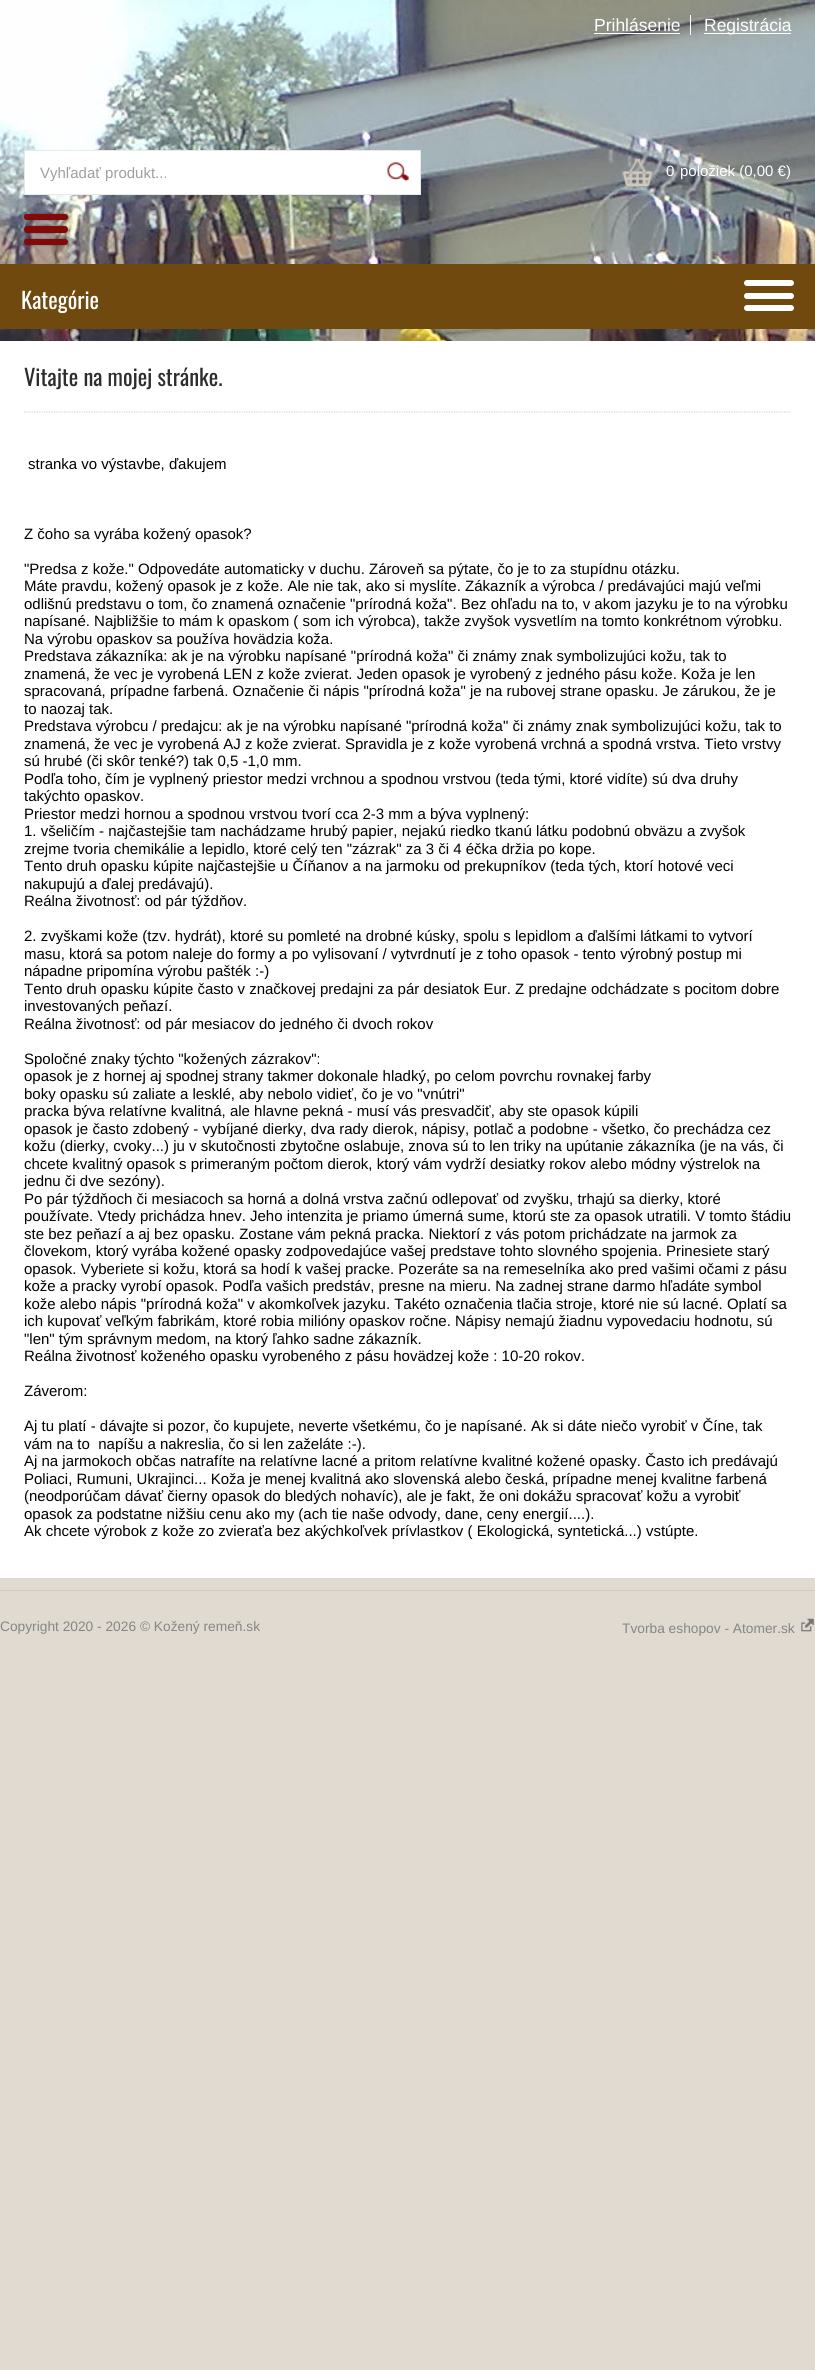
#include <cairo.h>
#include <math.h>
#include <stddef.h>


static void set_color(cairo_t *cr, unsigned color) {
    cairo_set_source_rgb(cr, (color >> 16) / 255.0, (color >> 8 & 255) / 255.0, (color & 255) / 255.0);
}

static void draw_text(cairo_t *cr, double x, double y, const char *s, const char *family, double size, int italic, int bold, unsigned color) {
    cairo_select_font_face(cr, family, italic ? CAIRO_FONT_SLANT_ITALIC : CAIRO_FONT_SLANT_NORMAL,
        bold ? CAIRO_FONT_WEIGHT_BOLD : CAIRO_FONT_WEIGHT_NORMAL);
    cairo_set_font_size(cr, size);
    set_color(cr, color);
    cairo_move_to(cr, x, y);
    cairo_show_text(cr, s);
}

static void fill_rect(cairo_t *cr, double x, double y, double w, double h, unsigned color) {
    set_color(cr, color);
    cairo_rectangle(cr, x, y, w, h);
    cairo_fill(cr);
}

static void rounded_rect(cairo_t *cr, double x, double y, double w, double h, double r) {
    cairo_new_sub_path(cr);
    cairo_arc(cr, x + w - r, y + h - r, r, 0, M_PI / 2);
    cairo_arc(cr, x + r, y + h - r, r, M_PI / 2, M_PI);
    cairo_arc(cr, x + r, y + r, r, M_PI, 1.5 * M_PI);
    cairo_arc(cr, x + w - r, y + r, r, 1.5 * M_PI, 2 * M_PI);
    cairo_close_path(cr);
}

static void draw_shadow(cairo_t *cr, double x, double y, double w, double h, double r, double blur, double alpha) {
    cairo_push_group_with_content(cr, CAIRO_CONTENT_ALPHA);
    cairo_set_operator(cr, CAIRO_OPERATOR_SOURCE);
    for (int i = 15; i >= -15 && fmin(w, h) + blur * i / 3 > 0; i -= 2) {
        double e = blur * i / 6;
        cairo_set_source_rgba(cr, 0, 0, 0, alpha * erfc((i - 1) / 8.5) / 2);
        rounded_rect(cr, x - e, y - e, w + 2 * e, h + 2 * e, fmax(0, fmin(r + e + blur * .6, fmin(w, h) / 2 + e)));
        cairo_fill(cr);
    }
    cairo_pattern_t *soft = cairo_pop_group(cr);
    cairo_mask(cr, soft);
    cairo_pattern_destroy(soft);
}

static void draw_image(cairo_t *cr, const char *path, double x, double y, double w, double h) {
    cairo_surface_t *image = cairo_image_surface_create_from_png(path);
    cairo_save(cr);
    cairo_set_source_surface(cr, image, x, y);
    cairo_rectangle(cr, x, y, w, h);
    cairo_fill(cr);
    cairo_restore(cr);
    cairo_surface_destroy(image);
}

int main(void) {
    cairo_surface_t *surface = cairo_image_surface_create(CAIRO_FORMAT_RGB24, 815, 2370);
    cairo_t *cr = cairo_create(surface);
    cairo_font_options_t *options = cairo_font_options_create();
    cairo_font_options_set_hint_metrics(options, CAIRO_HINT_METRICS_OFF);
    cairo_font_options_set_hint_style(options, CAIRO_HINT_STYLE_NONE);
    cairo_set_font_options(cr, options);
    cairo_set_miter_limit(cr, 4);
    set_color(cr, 0xE0DAD1);
    cairo_paint(cr);
    draw_image(cr, "assets/img1.png", 0, 0, 815, 341);
    draw_text(cr, 594, 31, "Prihlásenie", "Liberation Sans", 17.5, 0, 0, 0xFFFFFF);
    fill_rect(cr, 690, 15, 1, 20, 0xFFFFFF);
    fill_rect(cr, 594, 33, 86, 1, 0xFFFFFF);
    fill_rect(cr, 704, 33, 87, 1, 0xFFFFFF);
    draw_text(cr, 704, 31, "Registrácia", "Liberation Sans", 17.5, 0, 0, 0xFFFFFF);
    cairo_rectangle(cr, 24.5, 150.5, 396, 44);
    cairo_fill_preserve(cr);
    set_color(cr, 0xE6EBE3);
    cairo_set_line_width(cr, 1);
    cairo_stroke(cr);
    draw_text(cr, 40, 178, "Vyhľadať produkt...", "Liberation Sans", 15, 0, 0, 0x9C9FA4);
    draw_image(cr, "assets/img2.png", 387, 162, 22, 20);
    draw_image(cr, "assets/img3.png", 622, 158, 31, 29);
    draw_text(cr, 666, 176, "0", "Liberation Sans", 15, 0, 0, 0xFFFFFF);
    draw_text(cr, 680, 176, "položiek (0,00 €)", "Liberation Sans", 15, 0, 0, 0xFFFFFF);
    set_color(cr, 0x000000);
    draw_shadow(cr, 24, 214, 44, 6, 3, 1, 0.4);
    set_color(cr, 0x830808);
    rounded_rect(cr, 24, 214, 44, 6, 3);
    cairo_fill(cr);
    set_color(cr, 0x000000);
    draw_shadow(cr, 24, 226, 44, 7, 3.5, 1, 0.4);
    set_color(cr, 0x830808);
    rounded_rect(cr, 24, 226, 44, 7, 3.5);
    cairo_fill(cr);
    set_color(cr, 0x000000);
    draw_shadow(cr, 24, 239, 44, 6, 3, 1, 0.4);
    set_color(cr, 0x830808);
    rounded_rect(cr, 24, 239, 44, 6, 3);
    cairo_fill(cr);
    fill_rect(cr, 0, 264, 815, 65, 0x6F490E);
    draw_text(cr, 21, 309, "Kategórie", "Oswald", 22.5, 0, 0, 0xFFFFFF);
    rounded_rect(cr, 744, 280, 50, 6, 3);
    cairo_fill(cr);
    rounded_rect(cr, 744, 293, 50, 6, 3);
    cairo_fill(cr);
    rounded_rect(cr, 744, 305, 50, 6, 3);
    cairo_fill(cr);
    fill_rect(cr, 0, 341, 815, 1237, 0xFFFFFF);
    cairo_new_path(cr);
    cairo_move_to(cr, 24, 412);
    cairo_line_to(cr, 791, 412);
    set_color(cr, 0xD8D8D8);
    cairo_set_line_width(cr, 1.2);
    cairo_set_dash(cr, (double[]){1.25, 1.25}, 2, 0);
    cairo_stroke(cr);
    draw_text(cr, 24, 386, "Vitajte na mojej stránke.", "Oswald", 22.5, 0, 0, 0x2D2D2D);
    draw_text(cr, 28, 469, "stranka vo výstavbe, ďakujem", "Liberation Sans", 15, 0, 0, 0x000000);
    draw_text(cr, 24, 539, "Z čoho sa vyrába kožený opasok?", "Liberation Sans", 15, 0, 0, 0x000000);
    draw_text(cr, 24, 574, "\"Predsa z kože.\" Odpovedáte automaticky v duchu. Zároveň sa pýtate, čo je to za stupídnu otázku.", "Liberation Sans", 15, 0, 0, 0x000000);
    draw_text(cr, 24, 591, "Máte pravdu, kožený opasok je z kože. Ale nie tak, ako si myslíte. Zákazník a výrobca / predávajúci majú veľmi", "Liberation Sans", 15, 0, 0, 0x000000);
    draw_text(cr, 24, 609, "odlišnú predstavu o tom, čo znamená označenie \"prírodná koža\". Bez ohľadu na to, v akom jazyku je to na výrobku", "Liberation Sans", 15, 0, 0, 0x000000);
    draw_text(cr, 24, 626, "napísané. Najbližšie to mám k opaskom ( som ich výrobca), takže zvyšok vysvetlím na tomto konkrétnom výrobku.", "Liberation Sans", 15, 0, 0, 0x000000);
    draw_text(cr, 24, 644, "Na výrobu opaskov sa používa hovädzia koža.", "Liberation Sans", 15, 0, 0, 0x000000);
    draw_text(cr, 24, 661, "Predstava zákazníka: ak je na výrobku napísané \"prírodná koža\" či známy znak symbolizujúci kožu, tak to", "Liberation Sans", 15, 0, 0, 0x000000);
    draw_text(cr, 24, 679, "znamená, že vec je vyrobená LEN z kože zvierat. Jeden opasok je vyrobený z jedného pásu kože. Koža je len", "Liberation Sans", 15, 0, 0, 0x000000);
    draw_text(cr, 24, 696, "spracovaná, prípadne farbená. Označenie či nápis \"prírodná koža\" je na rubovej strane opasku. Je zárukou, že je", "Liberation Sans", 15, 0, 0, 0x000000);
    draw_text(cr, 24, 714, "to naozaj tak.", "Liberation Sans", 15, 0, 0, 0x000000);
    draw_text(cr, 24, 731, "Predstava výrobcu / predajcu: ak je na výrobku napísané \"prírodná koža\" či známy znak symbolizujúci kožu, tak to", "Liberation Sans", 15, 0, 0, 0x000000);
    draw_text(cr, 24, 749, "znamená, že vec je vyrobená AJ z kože zvierat. Spravidla je z kože vyrobená vrchná a spodná vrstva. Tieto vrstvy", "Liberation Sans", 15, 0, 0, 0x000000);
    draw_text(cr, 24, 766, "sú hrubé (či skôr tenké?) tak 0,5 -1,0 mm.", "Liberation Sans", 15, 0, 0, 0x000000);
    draw_text(cr, 24, 784, "Podľa toho, čím je vyplnený priestor medzi vrchnou a spodnou vrstvou (teda tými, ktoré vidíte) sú dva druhy", "Liberation Sans", 15, 0, 0, 0x000000);
    draw_text(cr, 24, 801, "takýchto opaskov.", "Liberation Sans", 15, 0, 0, 0x000000);
    draw_text(cr, 24, 819, "Priestor medzi hornou a spodnou vrstvou tvorí cca 2-3 mm a býva vyplnený:", "Liberation Sans", 15, 0, 0, 0x000000);
    draw_text(cr, 24, 836, "1. všeličím - najčastejšie tam nachádzame hrubý papier, nejakú riedko tkanú látku podobnú obväzu a zvyšok", "Liberation Sans", 15, 0, 0, 0x000000);
    draw_text(cr, 24, 854, "zrejme tvoria chemikálie a lepidlo, ktoré celý ten \"zázrak\" za 3 či 4 éčka držia po kope.", "Liberation Sans", 15, 0, 0, 0x000000);
    draw_text(cr, 24, 871, "Tento druh opasku kúpite najčastejšie u Číňanov a na jarmoku od prekupníkov (teda tých, ktorí hotové veci", "Liberation Sans", 15, 0, 0, 0x000000);
    draw_text(cr, 24, 889, "nakupujú a ďalej predávajú).", "Liberation Sans", 15, 0, 0, 0x000000);
    draw_text(cr, 24, 906, "Reálna životnosť: od pár týždňov.", "Liberation Sans", 15, 0, 0, 0x000000);
    draw_text(cr, 24, 941, "2. zvyškami kože (tzv. hydrát), ktoré su pomleté na drobné kúsky, spolu s lepidlom a ďalšími látkami to vytvorí", "Liberation Sans", 15, 0, 0, 0x000000);
    draw_text(cr, 24, 959, "masu, ktorá sa potom naleje do formy a po vylisovaní / vytvrdnutí je z toho opasok - tento výrobný postup mi", "Liberation Sans", 15, 0, 0, 0x000000);
    draw_text(cr, 24, 976, "nápadne pripomína výrobu pašték :-)", "Liberation Sans", 15, 0, 0, 0x000000);
    draw_text(cr, 24, 994, "Tento druh opasku kúpite často v značkovej predajni za pár desiatok Eur. Z predajne odchádzate s pocitom dobre", "Liberation Sans", 15, 0, 0, 0x000000);
    draw_text(cr, 24, 1011, "investovaných peňazí.", "Liberation Sans", 15, 0, 0, 0x000000);
    draw_text(cr, 24, 1029, "Reálna životnosť: od pár mesiacov do jedného či dvoch rokov", "Liberation Sans", 15, 0, 0, 0x000000);
    draw_text(cr, 24, 1064, "Spoločné znaky týchto \"kožených zázrakov\":", "Liberation Sans", 15, 0, 0, 0x000000);
    draw_text(cr, 24, 1081, "opasok je z hornej aj spodnej strany takmer dokonale hladký, po celom povrchu rovnakej farby", "Liberation Sans", 15, 0, 0, 0x000000);
    draw_text(cr, 24, 1099, "boky opasku sú zaliate a lesklé, aby nebolo vidieť, čo je vo \"vnútri\"", "Liberation Sans", 15, 0, 0, 0x000000);
    draw_text(cr, 24, 1116, "pracka býva relatívne kvalitná, ale hlavne pekná - musí vás presvadčiť, aby ste opasok kúpili", "Liberation Sans", 15, 0, 0, 0x000000);
    draw_text(cr, 24, 1134, "opasok je často zdobený - vybíjané dierky, dva rady dierok, nápisy, potlač a podobne - všetko, čo prechádza cez", "Liberation Sans", 15, 0, 0, 0x000000);
    draw_text(cr, 24, 1151, "kožu (dierky, cvoky...) ju v skutočnosti zbytočne oslabuje, znova sú to len triky na upútanie zákazníka (je na vás, či", "Liberation Sans", 15, 0, 0, 0x000000);
    draw_text(cr, 24, 1169, "chcete kvalitný opasok s primeraným počtom dierok, ktorý vám vydrží desiatky rokov alebo módny výstrelok na", "Liberation Sans", 15, 0, 0, 0x000000);
    draw_text(cr, 24, 1186, "jednu či dve sezóny).", "Liberation Sans", 15, 0, 0, 0x000000);
    draw_text(cr, 24, 1204, "Po pár týždňoch či mesiacoch sa horná a dolná vrstva začnú odlepovať od zvyšku, trhajú sa dierky, ktoré", "Liberation Sans", 15, 0, 0, 0x000000);
    draw_text(cr, 24, 1221, "používate. Vtedy prichádza hnev. Jeho intenzita je priamo úmerná sume, ktorú ste za opasok utratili. V tomto štádiu", "Liberation Sans", 15, 0, 0, 0x000000);
    draw_text(cr, 24, 1239, "ste bez peňazí a aj bez opasku. Zostane vám pekná pracka. Niektorí z vás potom prichádzate na jarmok za", "Liberation Sans", 15, 0, 0, 0x000000);
    draw_text(cr, 24, 1256, "človekom, ktorý vyrába kožené opasky zodpovedajúce vašej predstave tohto slovného spojenia. Prinesiete starý", "Liberation Sans", 15, 0, 0, 0x000000);
    draw_text(cr, 24, 1274, "opasok. Vyberiete si kožu, ktorá sa hodí k vašej pracke. Pozeráte sa na remeselníka ako pred vašimi očami z pásu", "Liberation Sans", 15, 0, 0, 0x000000);
    draw_text(cr, 24, 1291, "kože a pracky vyrobí opasok. Podľa vašich predstáv, presne na mieru. Na zadnej strane darmo hľadáte symbol", "Liberation Sans", 15, 0, 0, 0x000000);
    draw_text(cr, 24, 1309, "kože alebo nápis \"prírodná koža\" v akomkoľvek jazyku. Takéto označenia tlačia stroje, ktoré nie sú lacné. Oplatí sa", "Liberation Sans", 15, 0, 0, 0x000000);
    draw_text(cr, 24, 1326, "ich kupovať veľkým fabrikám, ktoré robia milióny opaskov ročne. Nápisy nemajú žiadnu vypovedaciu hodnotu, sú", "Liberation Sans", 15, 0, 0, 0x000000);
    draw_text(cr, 24, 1344, "\"len\" tým správnym medom, na ktorý ľahko sadne zákazník.", "Liberation Sans", 15, 0, 0, 0x000000);
    draw_text(cr, 24, 1361, "Reálna životnosť koženého opasku vyrobeného z pásu hovädzej kože : 10-20 rokov.", "Liberation Sans", 15, 0, 0, 0x000000);
    draw_text(cr, 24, 1396, "Záverom:", "Liberation Sans", 15, 0, 0, 0x000000);
    draw_text(cr, 24, 1431, "Aj tu platí - dávajte si pozor, čo kupujete, neverte všetkému, čo je napísané. Ak si dáte niečo vyrobiť v Číne, tak", "Liberation Sans", 15, 0, 0, 0x000000);
    draw_text(cr, 24, 1449, "vám na to  napíšu a nakreslia, čo si len zaželáte :-).", "Liberation Sans", 15, 0, 0, 0x000000);
    draw_text(cr, 24, 1466, "Aj na jarmokoch občas natrafíte na relatívne lacné a pritom relatívne kvalitné kožené opasky. Často ich predávajú", "Liberation Sans", 15, 0, 0, 0x000000);
    draw_text(cr, 24, 1484, "Poliaci, Rumuni, Ukrajinci... Koža je menej kvalitná ako slovenská alebo česká, prípadne menej kvalitne farbená", "Liberation Sans", 15, 0, 0, 0x000000);
    draw_text(cr, 24, 1501, "(neodporúčam dávať čierny opasok do bledých nohavíc), ale je fakt, že oni dokážu spracovať kožu a vyrobiť", "Liberation Sans", 15, 0, 0, 0x000000);
    draw_text(cr, 24, 1519, "opasok za podstatne nižšiu cenu ako my (ach tie naše odvody, dane, ceny energií....).", "Liberation Sans", 15, 0, 0, 0x000000);
    draw_text(cr, 24, 1536, "Ak chcete výrobok z kože zo zvieraťa bez akýchkoľvek prívlastkov ( Ekologická, syntetická...) vstúpte.", "Liberation Sans", 15, 0, 0, 0x000000);
    fill_rect(cr, 0, 1590, 815, 1, 0xD4CDC1);
    draw_text(cr, 0, 1631, "Copyright 2020 - 2026 © Kožený remeň.sk", "Liberation Sans", 13.75, 0, 0, 0x868686);
    draw_text(cr, 622, 1633, "Tvorba eshopov - Atomer.sk", "Liberation Sans", 13.75, 0, 0, 0x868686);
    draw_image(cr, "assets/img4.png", 801, 1618, 13, 14);
    cairo_surface_write_to_png(surface, "output.png");
    cairo_font_options_destroy(options);
    cairo_destroy(cr);
    cairo_surface_destroy(surface);
    return 0;
}
